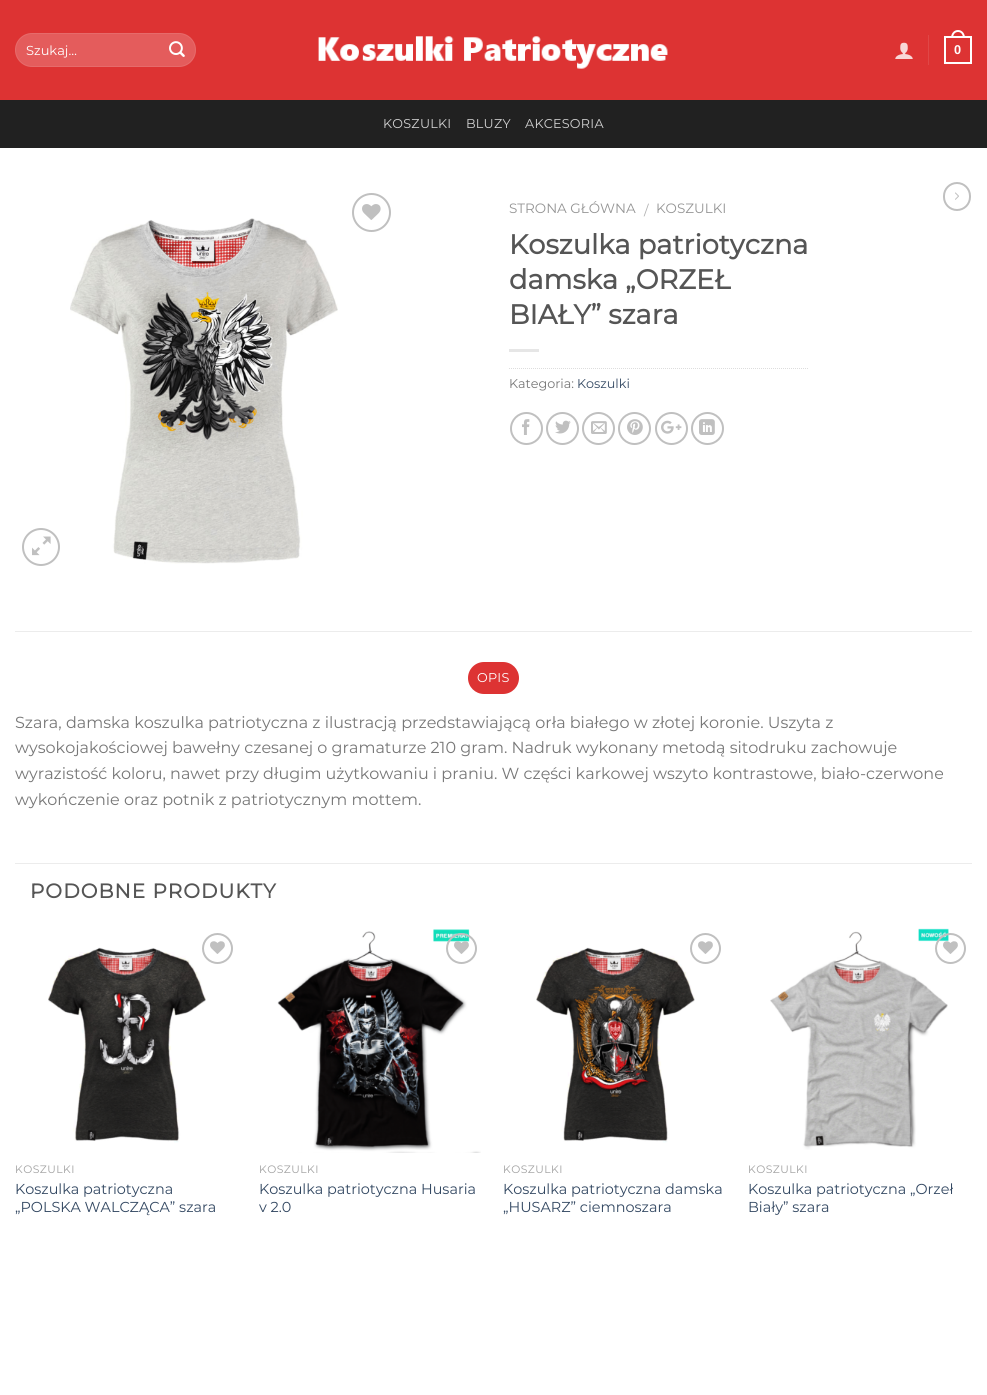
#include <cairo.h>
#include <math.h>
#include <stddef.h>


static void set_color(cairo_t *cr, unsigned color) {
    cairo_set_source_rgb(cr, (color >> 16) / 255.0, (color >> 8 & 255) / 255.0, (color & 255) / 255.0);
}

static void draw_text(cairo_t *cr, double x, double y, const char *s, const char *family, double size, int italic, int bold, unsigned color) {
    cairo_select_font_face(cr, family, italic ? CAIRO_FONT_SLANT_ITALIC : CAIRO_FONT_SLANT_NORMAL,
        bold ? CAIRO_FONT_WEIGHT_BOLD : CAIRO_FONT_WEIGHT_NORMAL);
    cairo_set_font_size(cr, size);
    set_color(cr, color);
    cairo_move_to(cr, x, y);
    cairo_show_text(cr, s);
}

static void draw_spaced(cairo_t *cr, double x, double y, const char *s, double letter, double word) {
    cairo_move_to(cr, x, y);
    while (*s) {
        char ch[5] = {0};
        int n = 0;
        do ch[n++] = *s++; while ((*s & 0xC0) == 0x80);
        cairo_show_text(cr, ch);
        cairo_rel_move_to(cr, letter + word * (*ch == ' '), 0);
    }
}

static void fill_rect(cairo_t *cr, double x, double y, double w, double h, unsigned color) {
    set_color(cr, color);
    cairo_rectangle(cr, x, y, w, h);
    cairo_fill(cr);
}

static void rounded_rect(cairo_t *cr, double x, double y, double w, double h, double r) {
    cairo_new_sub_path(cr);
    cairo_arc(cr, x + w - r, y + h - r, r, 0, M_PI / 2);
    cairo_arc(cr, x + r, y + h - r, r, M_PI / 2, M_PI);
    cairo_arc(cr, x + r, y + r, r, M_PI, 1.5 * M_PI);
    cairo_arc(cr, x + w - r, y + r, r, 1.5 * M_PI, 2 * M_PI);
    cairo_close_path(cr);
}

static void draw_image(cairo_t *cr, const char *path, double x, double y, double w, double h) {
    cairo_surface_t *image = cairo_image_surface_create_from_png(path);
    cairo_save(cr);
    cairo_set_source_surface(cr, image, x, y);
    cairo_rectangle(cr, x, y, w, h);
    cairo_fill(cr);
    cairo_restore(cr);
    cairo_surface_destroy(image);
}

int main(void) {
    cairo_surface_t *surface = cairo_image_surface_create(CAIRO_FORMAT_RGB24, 987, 1395);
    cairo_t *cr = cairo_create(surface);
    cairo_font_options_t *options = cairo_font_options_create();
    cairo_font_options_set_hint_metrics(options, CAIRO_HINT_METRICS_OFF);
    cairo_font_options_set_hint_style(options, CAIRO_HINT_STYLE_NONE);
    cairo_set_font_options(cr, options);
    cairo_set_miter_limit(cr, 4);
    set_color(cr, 0xFFFFFF);
    cairo_paint(cr);
    fill_rect(cr, 0, 0, 987, 100, 0xDD3333);
    set_color(cr, 0xE45C5C);
    rounded_rect(cr, 15, 33, 181, 34, 17);
    cairo_fill(cr);
    rounded_rect(cr, 15.5, 33.5, 180, 33, 16.5);
    cairo_set_source_rgba(cr, 1, 1, 1, 0.09);
    cairo_set_line_width(cr, 1);
    cairo_stroke(cr);
    draw_text(cr, 26, 55, "Szukaj…", "Montserrat Thin", 13, 0, 0, 0xFFFFFF);
    draw_image(cr, "assets/img1.png", 169, 41, 16, 16);
    draw_image(cr, "assets/img2.png", 318, 36, 350, 33);
    draw_image(cr, "assets/img3.png", 895, 42, 18, 17);
    fill_rect(cr, 928, 35, 1, 30, 0xE04747);
    cairo_rectangle(cr, 945, 37, 26, 26);
    set_color(cr, 0xFFFFFF);
    cairo_set_line_width(cr, 2);
    cairo_stroke(cr);
    cairo_set_fill_rule(cr, CAIRO_FILL_RULE_EVEN_ODD);
    cairo_new_path(cr);
    cairo_move_to(cr, 958, 30);
    cairo_curve_to(cr, 962.5, 30, 965, 34, 965, 38);
    cairo_line_to(cr, 951, 38);
    cairo_curve_to(cr, 951, 34, 953.5, 30, 958, 30);
    cairo_close_path(cr);
    cairo_move_to(cr, 958, 32);
    cairo_curve_to(cr, 961.5, 32, 963, 35, 963, 38);
    cairo_line_to(cr, 953, 38);
    cairo_curve_to(cr, 953, 35, 954.5, 32, 958, 32);
    cairo_close_path(cr);
    cairo_fill(cr);
    cairo_select_font_face(cr, "Liberation Sans", CAIRO_FONT_SLANT_NORMAL, CAIRO_FONT_WEIGHT_BOLD);
    cairo_set_font_size(cr, 12.75);
    draw_spaced(cr, 954, 54, "0", 0.25, 0);
    fill_rect(cr, 0, 100, 987, 48, 0x212121);
    cairo_select_font_face(cr, "Montserrat Thin", CAIRO_FONT_SLANT_NORMAL, CAIRO_FONT_WEIGHT_NORMAL);
    set_color(cr, 0xD3D3D3);
    draw_spaced(cr, 383, 128, "KOSZULKI", 0.25, 0);
    draw_spaced(cr, 466, 128, "BLUZY", 0.25, 0);
    draw_spaced(cr, 525, 128, "AKCESORIA", 0.25, 0);
    cairo_new_path(cr);
    cairo_arc(cr, 371.5, 212.5, 18.5, 0, 2 * M_PI);
    set_color(cr, 0xC0C0C0);
    cairo_stroke(cr);
    draw_image(cr, "assets/img4.png", 362, 204, 19, 16);
    cairo_arc(cr, 41, 547, 18, 0, 2 * M_PI);
    cairo_stroke(cr);
    draw_image(cr, "assets/img5.png", 32, 536, 19, 20);
    draw_image(cr, "assets/img6.png", 70, 218, 268, 346);
    draw_text(cr, 509, 213, "STRONA GŁÓWNA", "Montserrat Thin", 13.5, 0, 0, 0x949494);
    draw_text(cr, 644, 215, "/", "Montserrat Thin", 13.5, 0, 0, 0xB2B2B2);
    draw_text(cr, 656, 213, "KOSZULKI", "Montserrat Thin", 13.5, 0, 0, 0x949494);
    draw_text(cr, 509, 254, "Koszulka patriotyczna", "Montserrat", 27.25, 0, 1, 0x555555);
    draw_text(cr, 509, 289, "damska „ORZEŁ", "Montserrat", 27.25, 0, 1, 0x555555);
    draw_text(cr, 509, 324, "BIAŁY” szara", "Montserrat", 27.25, 0, 1, 0x555555);
    fill_rect(cr, 509, 349, 30, 3, 0xE6E6E6);
    cairo_new_path(cr);
    cairo_move_to(cr, 509, 368.5);
    cairo_line_to(cr, 808, 368.5);
    set_color(cr, 0xDDDDDD);
    cairo_set_line_width(cr, 1);
    cairo_set_dash(cr, (double[]){1, 1}, 2, 0);
    cairo_stroke(cr);
    draw_text(cr, 509, 388, "Kategoria:", "Montserrat Thin", 12.75, 0, 0, 0x777777);
    draw_text(cr, 577, 388, "Koszulki", "Montserrat Thin", 12.75, 0, 0, 0x334862);
    cairo_new_path(cr);
    cairo_arc(cr, 526.5, 428.5, 15.5, 0, 2 * M_PI);
    set_color(cr, 0xC0C0C0);
    cairo_set_line_width(cr, 2);
    cairo_set_dash(cr, NULL, 0, 0);
    cairo_stroke(cr);
    draw_image(cr, "assets/img7.png", 522, 419, 8, 16);
    cairo_arc(cr, 562.5, 428.5, 15.5, 0, 2 * M_PI);
    cairo_stroke(cr);
    draw_image(cr, "assets/img8.png", 555, 420, 16, 14);
    cairo_arc(cr, 598.5, 428.5, 15.5, 0, 2 * M_PI);
    cairo_stroke(cr);
    draw_image(cr, "assets/img9.png", 591, 421, 16, 13);
    cairo_arc(cr, 634.5, 428.5, 15.5, 0, 2 * M_PI);
    cairo_stroke(cr);
    draw_image(cr, "assets/img10.png", 627, 419, 16, 16);
    cairo_arc(cr, 671.5, 428.5, 15.5, 0, 2 * M_PI);
    cairo_stroke(cr);
    draw_image(cr, "assets/img11.png", 661, 420, 21, 14);
    cairo_arc(cr, 707.5, 428.5, 15.5, 0, 2 * M_PI);
    cairo_stroke(cr);
    draw_image(cr, "assets/img12.png", 699, 419, 16, 16);
    rounded_rect(cr, 944, 183, 26, 27, 13);
    cairo_stroke(cr);
    draw_image(cr, "assets/img13.png", 955, 192, 4, 8);
    fill_rect(cr, 15, 631, 957, 1, 0xECECEC);
    set_color(cr, 0xDD3333);
    rounded_rect(cr, 468, 662, 51, 32, 16);
    cairo_fill(cr);
    set_color(cr, 0xFFFFFF);
    draw_spaced(cr, 477, 682, "OPIS", 0.25, 0);
    draw_text(cr, 15, 728, "Szara, damska koszulka patriotyczna z ilustracją przedstawiającą orła białego w złotej koronie. Uszyta z", "Montserrat Thin", 16, 0, 0, 0x777777);
    draw_text(cr, 15, 753, "wysokojakościowej bawełny czesanej o gramaturze 210 gram. Nadruk wykonany metodą sitodruku zachowuje", "Montserrat Thin", 16, 0, 0, 0x777777);
    draw_text(cr, 15, 779, "wyrazistość koloru, nawet przy długim użytkowaniu i praniu. W części karkowej wszyto kontrastowe, biało-czerwone", "Montserrat Thin", 16, 0, 0, 0x777777);
    draw_text(cr, 15, 805, "wykończenie oraz potnik z patriotycznym mottem.", "Montserrat Thin", 16, 0, 0, 0x777777);
    fill_rect(cr, 15, 863, 957, 1, 0xECECEC);
    cairo_select_font_face(cr, "Montserrat", CAIRO_FONT_SLANT_NORMAL, CAIRO_FONT_WEIGHT_BOLD);
    cairo_set_font_size(cr, 20);
    set_color(cr, 0x555555);
    draw_spaced(cr, 30, 898, "PODOBNE PRODUKTY", 1, 0);
    draw_image(cr, "assets/img14.png", 48, 947, 158, 196);
    cairo_arc(cr, 217.5, 948.5, 14.5, 0, 2 * M_PI);
    set_color(cr, 0xC0C0C0);
    cairo_stroke(cr);
    draw_image(cr, "assets/img15.png", 210, 941, 15, 13);
    cairo_select_font_face(cr, "Montserrat Thin", CAIRO_FONT_SLANT_NORMAL, CAIRO_FONT_WEIGHT_NORMAL);
    cairo_set_font_size(cr, 10.75);
    set_color(cr, 0xA0A0A0);
    draw_spaced(cr, 15, 1173, "KOSZULKI", 0.5, 0);
    draw_text(cr, 15, 1194, "Koszulka patriotyczna", "Montserrat Thin", 14.4, 0, 0, 0x334862);
    draw_text(cr, 15, 1212, "„POLSKA WALCZĄCA” szara", "Montserrat Thin", 14.4, 0, 0, 0x334862);
    draw_image(cr, "assets/img16.png", 277, 929, 204, 224);
    cairo_arc(cr, 461.5, 948.5, 14.5, 0, 2 * M_PI);
    set_color(cr, 0xC0C0C0);
    cairo_stroke(cr);
    draw_image(cr, "assets/img17.png", 454, 941, 15, 13);
    cairo_set_font_size(cr, 10.75);
    set_color(cr, 0xA0A0A0);
    draw_spaced(cr, 259, 1173, "KOSZULKI", 0.5, 0);
    draw_text(cr, 259, 1194, "Koszulka patriotyczna Husaria", "Montserrat Thin", 14.4, 0, 0, 0x334862);
    draw_text(cr, 259, 1212, "v 2.0", "Montserrat Thin", 14.4, 0, 0, 0x334862);
    draw_image(cr, "assets/img18.png", 536, 947, 159, 196);
    cairo_arc(cr, 705.5, 948.5, 14.5, 0, 2 * M_PI);
    set_color(cr, 0xC0C0C0);
    cairo_stroke(cr);
    draw_image(cr, "assets/img15.png", 698, 941, 15, 13);
    cairo_set_font_size(cr, 10.75);
    set_color(cr, 0xA0A0A0);
    draw_spaced(cr, 503, 1173, "KOSZULKI", 0.5, 0);
    draw_text(cr, 503, 1194, "Koszulka patriotyczna damska", "Montserrat Thin", 14.4, 0, 0, 0x334862);
    draw_text(cr, 503, 1212, "„HUSARZ” ciemnoszara", "Montserrat Thin", 14.4, 0, 0, 0x334862);
    draw_image(cr, "assets/img19.png", 770, 928, 179, 222);
    cairo_arc(cr, 950.5, 948.5, 14.5, 0, 2 * M_PI);
    set_color(cr, 0xC0C0C0);
    cairo_stroke(cr);
    draw_image(cr, "assets/img20.png", 943, 941, 15, 13);
    cairo_set_font_size(cr, 10.75);
    set_color(cr, 0xA0A0A0);
    draw_spaced(cr, 748, 1173, "KOSZULKI", 0.5, 0);
    draw_text(cr, 748, 1194, "Koszulka patriotyczna „Orzeł", "Montserrat Thin", 14.4, 0, 0, 0x334862);
    draw_text(cr, 748, 1212, "Biały” szara", "Montserrat Thin", 14.4, 0, 0, 0x334862);
    cairo_surface_write_to_png(surface, "output.png");
    cairo_font_options_destroy(options);
    cairo_destroy(cr);
    cairo_surface_destroy(surface);
    return 0;
}
